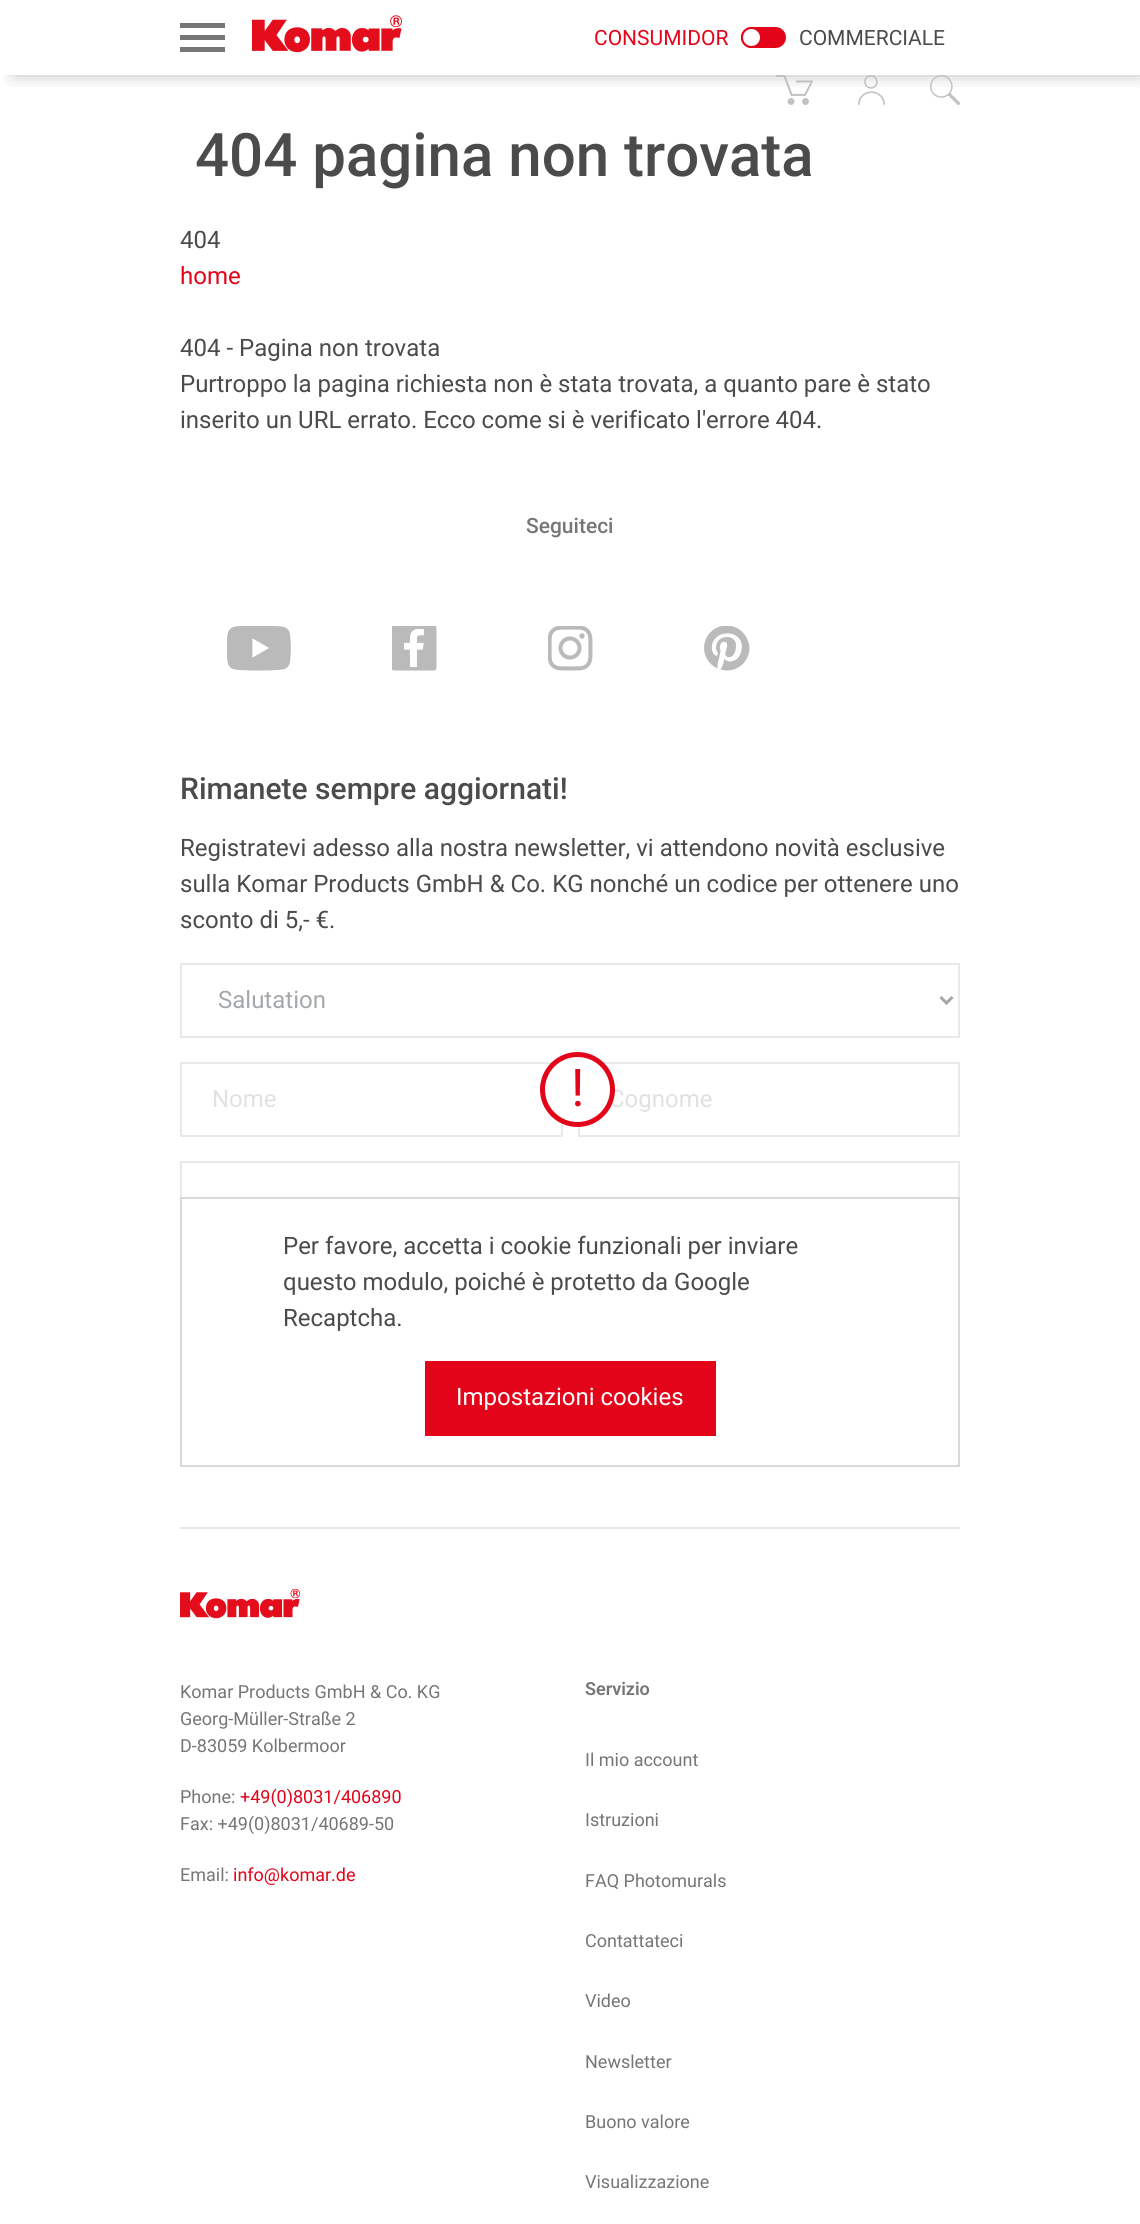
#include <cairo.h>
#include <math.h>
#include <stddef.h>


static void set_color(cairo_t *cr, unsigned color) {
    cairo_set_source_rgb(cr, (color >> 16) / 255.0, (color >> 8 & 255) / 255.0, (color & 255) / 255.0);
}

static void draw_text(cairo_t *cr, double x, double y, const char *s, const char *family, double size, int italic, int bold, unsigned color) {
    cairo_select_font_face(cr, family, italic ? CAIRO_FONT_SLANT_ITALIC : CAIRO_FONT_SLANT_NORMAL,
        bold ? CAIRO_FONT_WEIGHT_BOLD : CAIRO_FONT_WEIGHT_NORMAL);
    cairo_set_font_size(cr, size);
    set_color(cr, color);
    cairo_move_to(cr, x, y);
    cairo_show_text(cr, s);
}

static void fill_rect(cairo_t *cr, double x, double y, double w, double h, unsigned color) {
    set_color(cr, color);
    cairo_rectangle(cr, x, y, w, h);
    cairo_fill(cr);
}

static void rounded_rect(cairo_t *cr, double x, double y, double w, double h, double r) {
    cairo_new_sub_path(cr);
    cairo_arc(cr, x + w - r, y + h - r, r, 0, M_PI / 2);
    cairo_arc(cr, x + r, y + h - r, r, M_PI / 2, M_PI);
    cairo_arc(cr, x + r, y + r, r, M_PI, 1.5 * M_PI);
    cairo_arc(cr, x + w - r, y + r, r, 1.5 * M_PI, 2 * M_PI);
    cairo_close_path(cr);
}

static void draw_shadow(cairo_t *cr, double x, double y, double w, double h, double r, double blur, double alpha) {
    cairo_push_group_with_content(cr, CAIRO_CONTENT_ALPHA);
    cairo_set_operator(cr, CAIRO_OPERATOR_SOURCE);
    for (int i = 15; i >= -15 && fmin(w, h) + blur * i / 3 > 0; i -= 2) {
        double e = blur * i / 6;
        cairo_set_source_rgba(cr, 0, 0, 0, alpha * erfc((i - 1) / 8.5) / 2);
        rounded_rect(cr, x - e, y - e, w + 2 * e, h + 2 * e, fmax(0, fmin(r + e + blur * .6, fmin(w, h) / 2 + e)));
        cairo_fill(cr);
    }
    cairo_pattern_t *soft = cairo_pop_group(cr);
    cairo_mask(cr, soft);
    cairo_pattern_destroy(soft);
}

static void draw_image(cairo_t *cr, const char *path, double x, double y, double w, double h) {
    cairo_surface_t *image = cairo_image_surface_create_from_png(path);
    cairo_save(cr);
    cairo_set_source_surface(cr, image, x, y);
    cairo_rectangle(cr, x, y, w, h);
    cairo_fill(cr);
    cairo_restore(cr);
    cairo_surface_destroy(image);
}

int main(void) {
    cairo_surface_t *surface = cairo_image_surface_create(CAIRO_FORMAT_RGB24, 1140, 2224);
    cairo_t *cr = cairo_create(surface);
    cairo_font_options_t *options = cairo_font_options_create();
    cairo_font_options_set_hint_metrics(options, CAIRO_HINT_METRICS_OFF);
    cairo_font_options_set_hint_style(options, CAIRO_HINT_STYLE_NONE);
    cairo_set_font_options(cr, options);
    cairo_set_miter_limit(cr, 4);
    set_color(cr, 0xFFFFFF);
    cairo_paint(cr);
    cairo_save(cr);
    cairo_rectangle(cr, 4, 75, 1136, 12);
    cairo_clip(cr);
    set_color(cr, 0x000000);
    draw_shadow(cr, 15, 8, 1125, 60, 0, 11, 0.5);
    cairo_restore(cr);
    fill_rect(cr, 180, 23, 45, 5, 0x767676);
    fill_rect(cr, 180, 35, 45, 5, 0x767676);
    fill_rect(cr, 180, 47, 45, 5, 0x767676);
    draw_image(cr, "assets/img1.png", 252, 15, 150, 38);
    draw_text(cr, 594, 45, "CONSUMIDOR", "Roboto", 21, 0, 0, 0xE40419);
    rounded_rect(cr, 741, 27, 45, 21, 10.5);
    cairo_fill(cr);
    set_color(cr, 0xFFFFFF);
    cairo_arc(cr, 751.5, 37.5, 9.5, 0, 2 * M_PI);
    cairo_fill_preserve(cr);
    set_color(cr, 0xE40419);
    cairo_stroke(cr);
    draw_text(cr, 799, 45, "COMMERCIALE", "Roboto", 21, 0, 0, 0x4B4B4B);
    draw_image(cr, "assets/img2.png", 776, 75, 37, 30);
    draw_image(cr, "assets/img3.png", 858, 75, 27, 30);
    draw_image(cr, "assets/img4.png", 930, 75, 30, 30);
    draw_text(cr, 195, 176, "404 pagina non trovata", "Roboto Medium", 60, 0, 0, 0x4B4B4B);
    draw_text(cr, 180, 248, "404", "Roboto", 24, 0, 0, 0x4B4B4B);
    draw_text(cr, 180, 284, "home", "Roboto", 24, 0, 0, 0xE40419);
    draw_text(cr, 180, 356, "404 - Pagina non trovata", "Roboto", 24, 0, 0, 0x4B4B4B);
    draw_text(cr, 180, 392, "Purtroppo la pagina richiesta non è stata trovata, a quanto pare è stato", "Roboto", 24, 0, 0, 0x4B4B4B);
    draw_text(cr, 180, 428, "inserito un URL errato. Ecco come si è verificato l'errore 404.", "Roboto", 24, 0, 0, 0x4B4B4B);
    draw_text(cr, 526, 533, "Seguiteci", "Roboto Medium", 21, 0, 0, 0x767676);
    draw_image(cr, "assets/img5.png", 227, 626, 64, 45);
    draw_image(cr, "assets/img6.png", 392, 626, 45, 45);
    draw_image(cr, "assets/img7.png", 548, 626, 45, 45);
    draw_image(cr, "assets/img8.png", 704, 626, 46, 45);
    draw_text(cr, 180, 799, "Rimanete sempre aggiornati!", "Roboto Medium", 30, 0, 0, 0x4B4B4B);
    draw_text(cr, 180, 856, "Registratevi adesso alla nostra newsletter, vi attendono novità esclusive", "Roboto", 24, 0, 0, 0x4B4B4B);
    draw_text(cr, 180, 892, "sulla Komar Products GmbH & Co. KG nonché un codice per ottenere uno", "Roboto", 24, 0, 0, 0x4B4B4B);
    draw_text(cr, 180, 928, "sconto di 5,- €.", "Roboto", 24, 0, 0, 0x4B4B4B);
    cairo_rectangle(cr, 181, 964, 778, 73);
    set_color(cr, 0xE7EAED);
    cairo_stroke(cr);
    cairo_new_path(cr);
    cairo_move_to(cr, 940.5, 997);
    cairo_line_to(cr, 946.5, 1003);
    cairo_line_to(cr, 952.5, 997);
    set_color(cr, 0xA4A8AB);
    cairo_set_line_width(cr, 3);
    cairo_stroke(cr);
    draw_text(cr, 218, 1008, "Salutation", "Roboto", 24, 0, 0, 0xA4A8AB);
    cairo_rectangle(cr, 181, 1063, 381, 73);
    set_color(cr, 0xE7EAED);
    cairo_set_line_width(cr, 2);
    cairo_stroke(cr);
    draw_text(cr, 212, 1107, "Nome", "Roboto", 24, 0, 0, 0xE1E1E1);
    cairo_rectangle(cr, 579, 1063, 380, 73);
    set_color(cr, 0xE7EAED);
    cairo_stroke(cr);
    draw_text(cr, 609, 1107, "Cognome", "Roboto", 24, 0, 0, 0xE1E1E1);
    set_color(cr, 0xFFFFFF);
    cairo_new_path(cr);
    cairo_arc(cr, 577.5, 1089.5, 35, 0, 2 * M_PI);
    cairo_fill_preserve(cr);
    set_color(cr, 0xE40419);
    cairo_set_line_width(cr, 5);
    cairo_stroke(cr);
    draw_text(cr, 571, 1106, "!", "Roboto", 52, 0, 0, 0xE40419);
    cairo_rectangle(cr, 181, 1162, 778, 73);
    set_color(cr, 0xE7EAED);
    cairo_set_line_width(cr, 2);
    cairo_stroke(cr);
    fill_rect(cr, 182, 1234, 776, 2, 0xFFFFFF);
    cairo_rectangle(cr, 181, 1198, 778, 268);
    set_color(cr, 0xD9D9D9);
    cairo_stroke(cr);
    draw_text(cr, 283, 1254, "Per favore, accetta i cookie funzionali per inviare", "Roboto", 24, 0, 0, 0x4B4B4B);
    draw_text(cr, 283, 1290, "questo modulo, poiché è protetto da Google", "Roboto", 24, 0, 0, 0x4B4B4B);
    draw_text(cr, 283, 1326, "Recaptcha.", "Roboto", 24, 0, 0, 0x4B4B4B);
    fill_rect(cr, 425, 1361, 291, 75, 0xE40419);
    draw_text(cr, 456, 1405, "Impostazioni cookies", "Roboto", 24, 0, 0, 0xFFFFFF);
    fill_rect(cr, 180, 1527, 780, 2, 0xE6E6E6);
    draw_image(cr, "assets/img9.png", 180, 1589, 120, 30);
    draw_text(cr, 180, 1698, "Komar Products GmbH & Co. KG", "Roboto", 18, 0, 0, 0x767676);
    draw_text(cr, 180, 1725, "Georg-Müller-Straße 2", "Roboto", 18, 0, 0, 0x767676);
    draw_text(cr, 180, 1752, "D-83059 Kolbermoor", "Roboto", 18, 0, 0, 0x767676);
    draw_text(cr, 180, 1803, "Phone:", "Roboto", 18, 0, 0, 0x767676);
    draw_text(cr, 240, 1803, "+49(0)8031/406890", "Roboto", 18, 0, 0, 0xE40419);
    draw_text(cr, 180, 1830, "Fax: +49(0)8031/40689-50", "Roboto", 18, 0, 0, 0x767676);
    draw_text(cr, 180, 1881, "Email:", "Roboto", 18, 0, 0, 0x767676);
    draw_text(cr, 233, 1881, "info@komar.de", "Roboto", 18, 0, 0, 0xE40419);
    draw_text(cr, 585, 1695, "Servizio", "Roboto SemiBold", 18, 0, 0, 0x767676);
    draw_text(cr, 585, 1766, "Il mio account", "Roboto", 18, 0, 0, 0x767676);
    draw_text(cr, 585, 1826, "Istruzioni", "Roboto", 18, 0, 0, 0x767676);
    draw_text(cr, 585, 1887, "FAQ Photomurals", "Roboto", 18, 0, 0, 0x767676);
    draw_text(cr, 585, 1947, "Contattateci", "Roboto", 18, 0, 0, 0x767676);
    draw_text(cr, 585, 2007, "Video", "Roboto", 18, 0, 0, 0x767676);
    draw_text(cr, 585, 2068, "Newsletter", "Roboto", 18, 0, 0, 0x767676);
    draw_text(cr, 585, 2128, "Buono valore", "Roboto", 18, 0, 0, 0x767676);
    draw_text(cr, 585, 2188, "Visualizzazione", "Roboto", 18, 0, 0, 0x767676);
    cairo_surface_write_to_png(surface, "output.png");
    cairo_font_options_destroy(options);
    cairo_destroy(cr);
    cairo_surface_destroy(surface);
    return 0;
}
